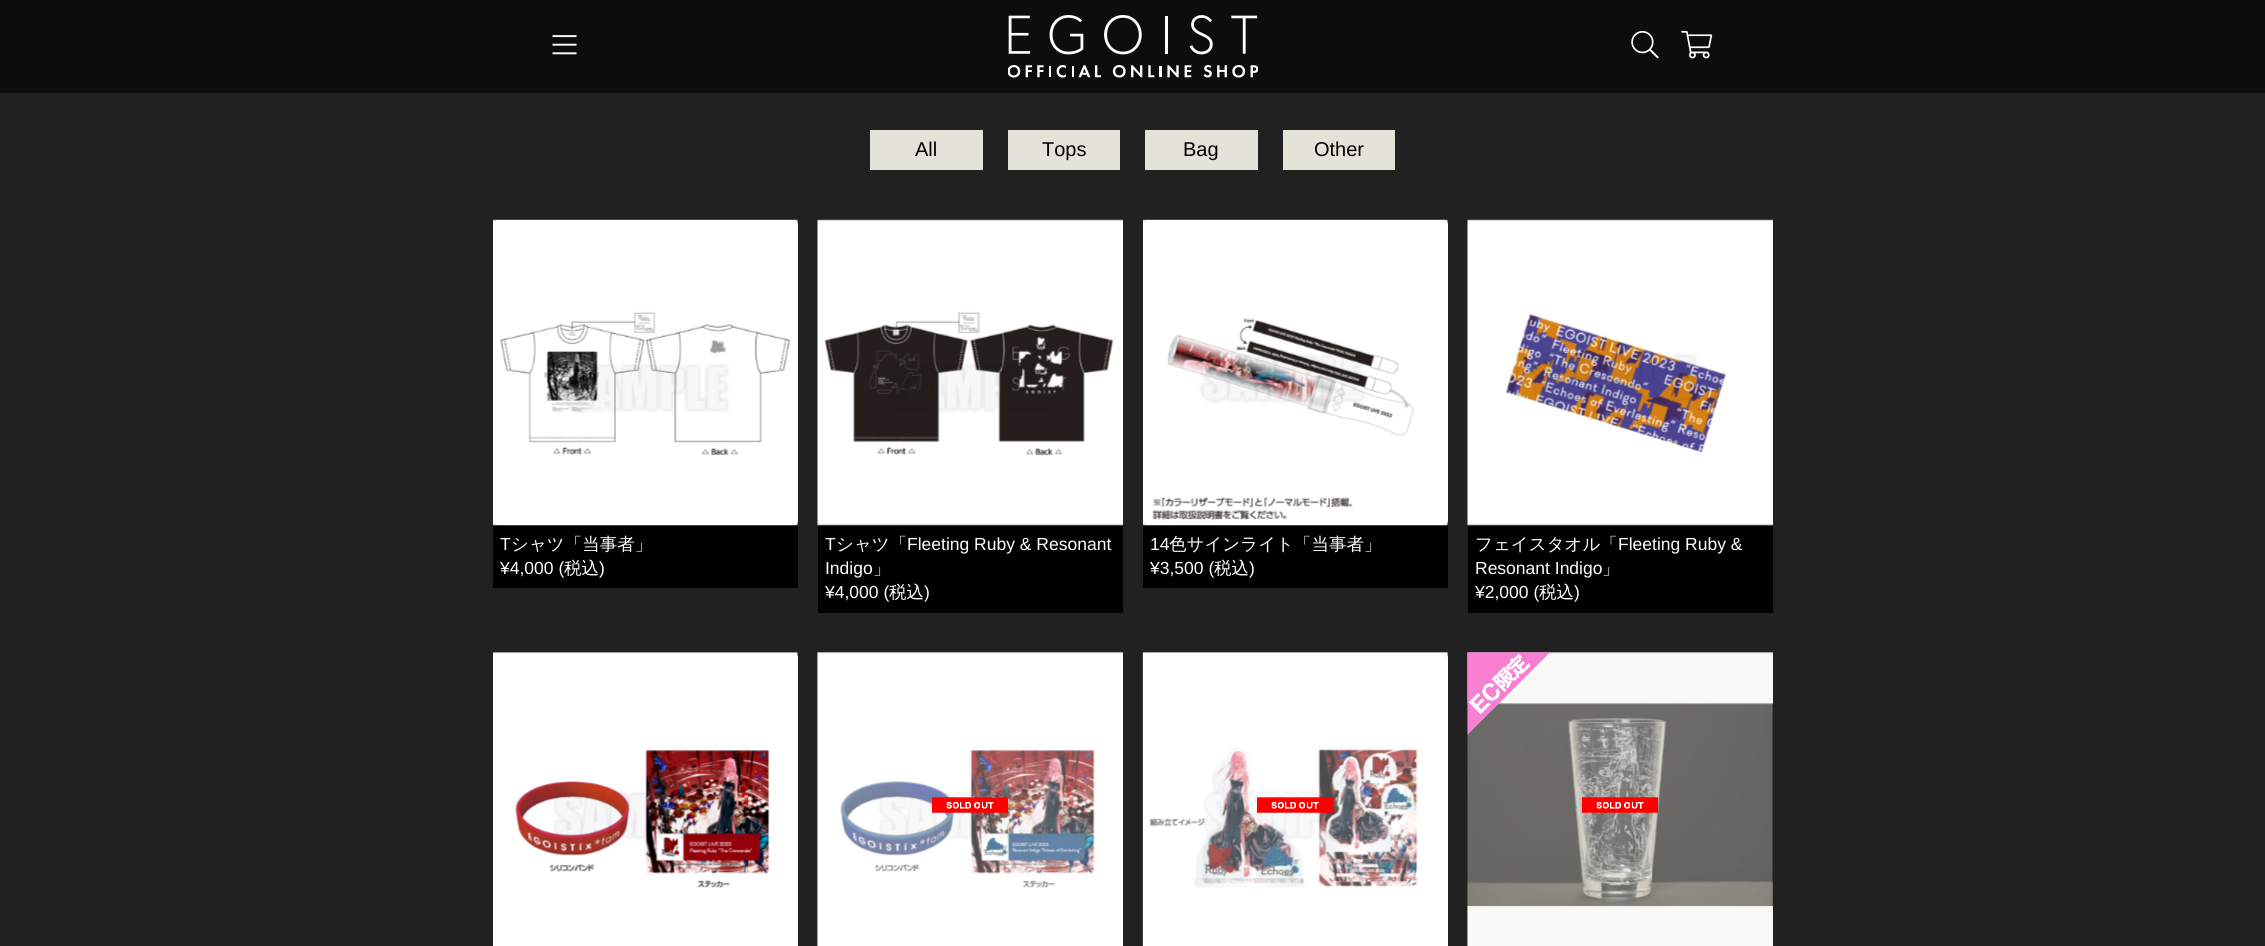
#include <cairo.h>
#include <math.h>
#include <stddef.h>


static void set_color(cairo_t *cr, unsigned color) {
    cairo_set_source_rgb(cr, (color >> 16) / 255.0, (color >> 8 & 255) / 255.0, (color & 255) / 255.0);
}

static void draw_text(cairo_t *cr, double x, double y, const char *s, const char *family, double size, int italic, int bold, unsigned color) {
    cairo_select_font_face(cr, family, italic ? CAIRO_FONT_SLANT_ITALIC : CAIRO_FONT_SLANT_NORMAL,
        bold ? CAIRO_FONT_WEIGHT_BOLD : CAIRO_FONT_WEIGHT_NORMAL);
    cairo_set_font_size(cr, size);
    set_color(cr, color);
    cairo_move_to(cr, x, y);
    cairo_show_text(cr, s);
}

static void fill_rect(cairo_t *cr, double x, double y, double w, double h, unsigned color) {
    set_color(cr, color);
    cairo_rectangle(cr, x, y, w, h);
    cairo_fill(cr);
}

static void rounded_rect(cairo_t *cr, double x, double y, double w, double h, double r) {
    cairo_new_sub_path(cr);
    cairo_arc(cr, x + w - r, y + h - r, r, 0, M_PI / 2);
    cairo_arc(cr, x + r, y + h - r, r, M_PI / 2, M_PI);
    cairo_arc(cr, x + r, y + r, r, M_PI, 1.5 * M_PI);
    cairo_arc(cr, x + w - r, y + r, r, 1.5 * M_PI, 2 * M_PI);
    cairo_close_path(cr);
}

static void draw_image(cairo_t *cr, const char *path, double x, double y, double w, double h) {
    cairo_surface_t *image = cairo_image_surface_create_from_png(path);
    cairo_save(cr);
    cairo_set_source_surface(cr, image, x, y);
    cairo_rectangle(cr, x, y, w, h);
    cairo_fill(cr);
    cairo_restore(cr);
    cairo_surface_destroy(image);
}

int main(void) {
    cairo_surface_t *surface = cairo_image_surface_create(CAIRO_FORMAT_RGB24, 2265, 946);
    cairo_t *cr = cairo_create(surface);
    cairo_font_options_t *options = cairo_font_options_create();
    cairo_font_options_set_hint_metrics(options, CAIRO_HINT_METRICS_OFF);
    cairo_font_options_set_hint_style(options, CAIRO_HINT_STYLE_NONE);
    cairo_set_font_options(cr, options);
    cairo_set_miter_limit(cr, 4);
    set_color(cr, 0x212121);
    cairo_paint(cr);
    fill_rect(cr, 0, 0, 2265, 93, 0x0D0D0D);
    draw_image(cr, "assets/img1.png", 552, 35, 25, 20);
    draw_image(cr, "assets/img2.png", 1008, 15, 250, 63);
    draw_image(cr, "assets/img3.png", 1631, 30, 28, 29);
    draw_image(cr, "assets/img4.png", 1681, 30, 32, 29);
    fill_rect(cr, 870, 130, 113, 40, 0xE4E3DA);
    draw_text(cr, 915, 156, "All", "Liberation Sans", 20, 0, 0, 0x000000);
    fill_rect(cr, 1008, 130, 112, 40, 0xE4E3DA);
    draw_text(cr, 1042, 156, "Tops", "Liberation Sans", 20, 0, 0, 0x000000);
    fill_rect(cr, 1145, 130, 113, 40, 0xE4E3DA);
    draw_text(cr, 1183, 156, "Bag", "Liberation Sans", 20, 0, 0, 0x000000);
    fill_rect(cr, 1283, 130, 112, 40, 0xE4E3DA);
    draw_text(cr, 1314, 156, "Other", "Liberation Sans", 20, 0, 0, 0x000000);
    set_color(cr, 0xFFFFFF);
    rounded_rect(cr, 493, 220, 305, 305, 5);
    cairo_fill(cr);
    fill_rect(cr, 493, 525, 305, 63, 0x000000);
    draw_image(cr, "assets/img5.png", 493, 219, 305, 307);
    draw_text(cr, 500, 550, "T", "Liberation Sans", 17.5, 0, 0, 0xFFFFFF);
    draw_text(cr, 511, 550, "シャツ「当事者」", "WenQuanYi Zen Hei Medium", 17.5, 0, 0, 0xFFFFFF);
    draw_text(cr, 500, 574, "¥4,000 (", "Liberation Sans", 17.5, 0, 0, 0xFFFFFF);
    draw_text(cr, 564, 574, "税込", "WenQuanYi Zen Hei Medium", 17.5, 0, 0, 0xFFFFFF);
    draw_text(cr, 599, 574, ")", "Liberation Sans", 17.5, 0, 0, 0xFFFFFF);
    fill_rect(cr, 818, 525, 305, 88, 0x000000);
    draw_image(cr, "assets/img6.png", 817, 219, 306, 307);
    draw_text(cr, 825, 550, "T", "Liberation Sans", 17.5, 0, 0, 0xFFFFFF);
    draw_text(cr, 836, 550, "シャツ「", "WenQuanYi Zen Hei Medium", 17.5, 0, 0, 0xFFFFFF);
    draw_text(cr, 907, 550, "Fleeting Ruby & Resonant", "Liberation Sans", 17.5, 0, 0, 0xFFFFFF);
    draw_text(cr, 825, 574, "Indigo", "Liberation Sans", 17.5, 0, 0, 0xFFFFFF);
    draw_text(cr, 873, 574, "」", "WenQuanYi Zen Hei Medium", 17.5, 0, 0, 0xFFFFFF);
    draw_text(cr, 825, 598, "¥4,000 (", "Liberation Sans", 17.5, 0, 0, 0xFFFFFF);
    draw_text(cr, 889, 598, "税込", "WenQuanYi Zen Hei Medium", 17.5, 0, 0, 0xFFFFFF);
    draw_text(cr, 924, 598, ")", "Liberation Sans", 17.5, 0, 0, 0xFFFFFF);
    rounded_rect(cr, 1143, 220, 305, 305, 5);
    cairo_fill(cr);
    fill_rect(cr, 1143, 525, 305, 63, 0x000000);
    draw_image(cr, "assets/img7.png", 1143, 219, 305, 307);
    draw_text(cr, 1150, 550, "14", "Liberation Sans", 17.5, 0, 0, 0xFFFFFF);
    draw_text(cr, 1169, 550, "色サインライト「当事者」", "WenQuanYi Zen Hei Medium", 17.5, 0, 0, 0xFFFFFF);
    draw_text(cr, 1150, 574, "¥3,500 (", "Liberation Sans", 17.5, 0, 0, 0xFFFFFF);
    draw_text(cr, 1214, 574, "税込", "WenQuanYi Zen Hei Medium", 17.5, 0, 0, 0xFFFFFF);
    draw_text(cr, 1249, 574, ")", "Liberation Sans", 17.5, 0, 0, 0xFFFFFF);
    fill_rect(cr, 1468, 525, 305, 88, 0x000000);
    draw_image(cr, "assets/img8.png", 1467, 219, 306, 307);
    draw_text(cr, 1475, 550, "フェイスタオル「", "WenQuanYi Zen Hei Medium", 17.5, 0, 0, 0xFFFFFF);
    draw_text(cr, 1618, 550, "Fleeting Ruby &", "Liberation Sans", 17.5, 0, 0, 0xFFFFFF);
    draw_text(cr, 1475, 574, "Resonant Indigo", "Liberation Sans", 17.5, 0, 0, 0xFFFFFF);
    draw_text(cr, 1602, 574, "」", "WenQuanYi Zen Hei Medium", 17.5, 0, 0, 0xFFFFFF);
    draw_text(cr, 1475, 598, "¥2,000 (", "Liberation Sans", 17.5, 0, 0, 0xFFFFFF);
    draw_text(cr, 1539, 598, "税込", "WenQuanYi Zen Hei Medium", 17.5, 0, 0, 0xFFFFFF);
    draw_text(cr, 1574, 598, ")", "Liberation Sans", 17.5, 0, 0, 0xFFFFFF);
    rounded_rect(cr, 493, 653, 305, 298, 5);
    cairo_fill(cr);
    draw_image(cr, "assets/img9.png", 493, 652, 305, 236);
    draw_image(cr, "assets/img10.png", 817, 652, 306, 294);
    draw_image(cr, "assets/img11.png", 817, 652, 306, 294);
    rounded_rect(cr, 1143, 653, 305, 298, 5);
    cairo_fill(cr);
    draw_image(cr, "assets/img13.png", 1143, 652, 305, 236);
    draw_image(cr, "assets/img12.png", 1142, 652, 306, 294);
    draw_image(cr, "assets/img14.png", 1467, 652, 306, 294);
    draw_image(cr, "assets/img15.png", 1467, 652, 83, 83);
    draw_image(cr, "assets/img16.png", 1467, 652, 306, 294);
    cairo_surface_write_to_png(surface, "output.png");
    cairo_font_options_destroy(options);
    cairo_destroy(cr);
    cairo_surface_destroy(surface);
    return 0;
}
